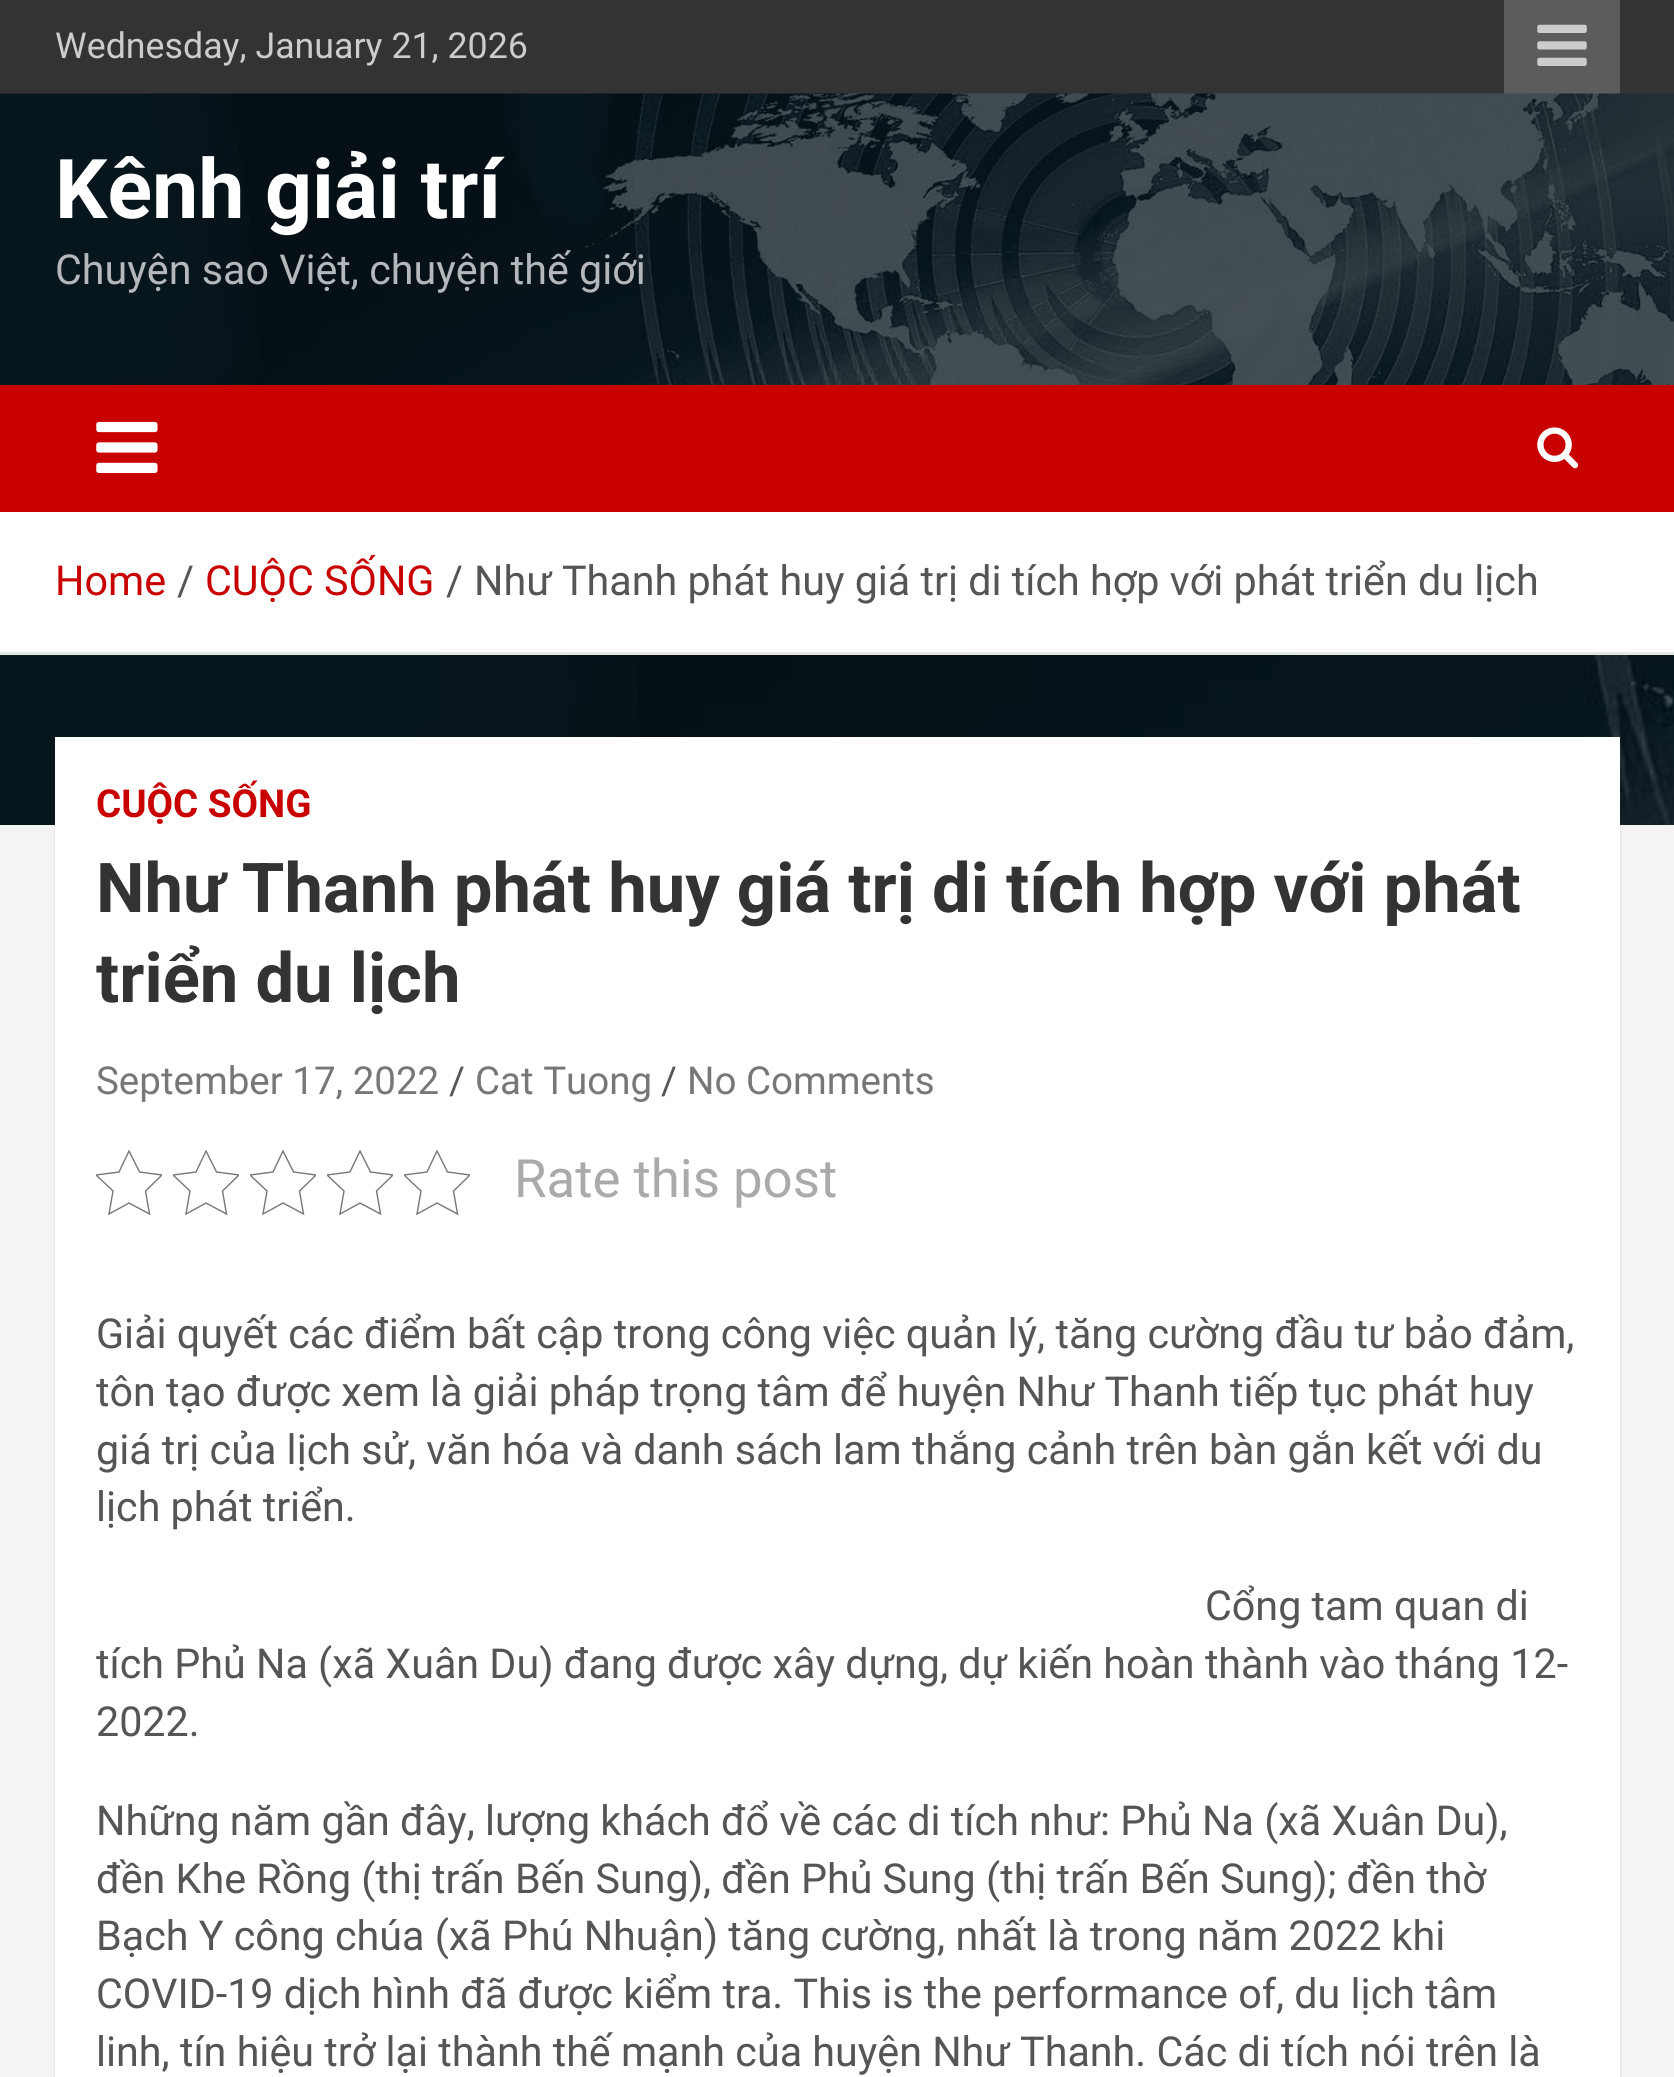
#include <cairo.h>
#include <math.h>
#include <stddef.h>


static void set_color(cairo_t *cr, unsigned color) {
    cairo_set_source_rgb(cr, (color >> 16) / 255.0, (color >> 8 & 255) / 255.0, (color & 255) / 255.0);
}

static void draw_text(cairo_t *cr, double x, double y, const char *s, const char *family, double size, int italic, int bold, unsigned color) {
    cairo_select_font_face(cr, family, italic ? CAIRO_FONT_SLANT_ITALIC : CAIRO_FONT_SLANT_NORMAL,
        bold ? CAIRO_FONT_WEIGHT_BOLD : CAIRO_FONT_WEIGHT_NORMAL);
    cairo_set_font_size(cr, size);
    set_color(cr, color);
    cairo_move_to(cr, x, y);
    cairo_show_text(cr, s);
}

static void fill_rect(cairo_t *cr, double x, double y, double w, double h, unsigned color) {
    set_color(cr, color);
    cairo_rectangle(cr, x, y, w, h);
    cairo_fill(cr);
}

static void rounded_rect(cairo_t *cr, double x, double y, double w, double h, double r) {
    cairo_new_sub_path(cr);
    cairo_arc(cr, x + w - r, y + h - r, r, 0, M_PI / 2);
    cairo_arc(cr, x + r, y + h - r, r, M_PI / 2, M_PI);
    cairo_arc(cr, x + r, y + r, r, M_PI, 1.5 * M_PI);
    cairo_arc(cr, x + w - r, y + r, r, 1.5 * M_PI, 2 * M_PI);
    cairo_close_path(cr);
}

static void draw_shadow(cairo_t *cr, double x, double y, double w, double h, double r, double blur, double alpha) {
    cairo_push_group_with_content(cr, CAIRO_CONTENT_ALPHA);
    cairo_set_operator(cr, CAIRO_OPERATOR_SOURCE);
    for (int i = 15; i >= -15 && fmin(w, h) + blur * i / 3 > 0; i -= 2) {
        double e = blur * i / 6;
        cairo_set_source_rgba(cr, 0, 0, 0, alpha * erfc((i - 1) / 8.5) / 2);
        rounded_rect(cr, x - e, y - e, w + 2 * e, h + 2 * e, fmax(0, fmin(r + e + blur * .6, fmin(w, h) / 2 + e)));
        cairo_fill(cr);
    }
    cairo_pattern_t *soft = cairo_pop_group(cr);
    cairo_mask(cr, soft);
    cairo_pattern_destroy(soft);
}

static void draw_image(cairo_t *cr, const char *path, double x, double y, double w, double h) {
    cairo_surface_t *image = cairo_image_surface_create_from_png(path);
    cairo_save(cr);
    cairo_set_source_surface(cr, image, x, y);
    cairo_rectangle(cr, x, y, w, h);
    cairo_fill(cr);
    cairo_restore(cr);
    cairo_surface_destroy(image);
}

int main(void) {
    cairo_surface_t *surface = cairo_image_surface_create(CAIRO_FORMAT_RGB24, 1674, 2077);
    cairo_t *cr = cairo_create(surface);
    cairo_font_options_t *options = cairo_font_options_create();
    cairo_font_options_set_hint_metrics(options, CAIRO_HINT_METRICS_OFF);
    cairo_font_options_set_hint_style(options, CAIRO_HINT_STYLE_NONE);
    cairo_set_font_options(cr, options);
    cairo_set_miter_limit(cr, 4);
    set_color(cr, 0xF4F4F4);
    cairo_paint(cr);
    draw_image(cr, "assets/img1.png", 0, 655, 1674, 170);
    fill_rect(cr, 0, 0, 1674, 94, 0x333333);
    draw_text(cr, 55, 58, "Wednesday, January 21, 2026", "Roboto", 35.75, 0, 0, 0xCCCCCC);
    fill_rect(cr, 1504, 0, 116, 94, 0x5C5C5C);
    draw_image(cr, "assets/img2.png", 1537, 24, 50, 42);
    draw_image(cr, "assets/img3.png", 0, 93, 1674, 292);
    draw_text(cr, 55, 218, "Kênh giải trí", "Roboto", 82.5, 0, 1, 0xFFFFFF);
    draw_text(cr, 55, 284, "Chuyện sao Việt, chuyện thế giới", "Roboto", 41.25, 0, 0, 0xB4B8BA);
    fill_rect(cr, 0, 385, 1674, 127, 0xC80000);
    draw_image(cr, "assets/img4.png", 96, 421, 62, 52);
    draw_image(cr, "assets/img5.png", 1537, 427, 42, 42);
    fill_rect(cr, 0, 512, 1674, 140, 0xFFFFFF);
    fill_rect(cr, 0, 652, 1674, 3, 0xE6E6E6);
    draw_text(cr, 55, 595, "Home", "Roboto", 41.25, 0, 0, 0xC80000);
    draw_text(cr, 177, 595, "/", "Roboto", 41.25, 0, 0, 0x555555);
    draw_text(cr, 205, 595, "CUỘC SỐNG", "Roboto", 41.25, 0, 0, 0xC80000);
    draw_text(cr, 446, 595, "/", "Roboto", 41.25, 0, 0, 0x555555);
    draw_text(cr, 474, 595, "Như Thanh phát huy giá trị di tích hợp với phát triển du lịch", "Roboto", 41.25, 0, 0, 0x555555);
    set_color(cr, 0x000000);
    draw_shadow(cr, 55, 740, 1565, 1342, 0, 1.5, 0.1);
    fill_rect(cr, 55, 737, 1565, 1340, 0xFFFFFF);
    draw_text(cr, 96, 817, "CUỘC SỐNG", "Roboto", 38.5, 0, 1, 0xC80000);
    draw_text(cr, 96, 912, "Như Thanh phát huy giá trị di tích hợp với phát", "Roboto", 68.75, 0, 1, 0x333333);
    draw_text(cr, 96, 1002, "triển du lịch", "Roboto", 68.75, 0, 1, 0x333333);
    draw_text(cr, 96, 1094, "September 17, 2022", "Roboto", 38.5, 0, 0, 0x777777);
    draw_text(cr, 449, 1094, "/", "Roboto", 38.5, 0, 0, 0x555555);
    draw_text(cr, 475, 1094, "Cat Tuong", "Roboto", 38.5, 0, 0, 0x777777);
    draw_text(cr, 661, 1094, "/", "Roboto", 38.5, 0, 0, 0x555555);
    draw_text(cr, 687, 1094, "No Comments", "Roboto", 38.5, 0, 0, 0x777777);
    cairo_save(cr);
    cairo_rectangle(cr, 96, 1150, 66, 66);
    cairo_clip(cr);
    cairo_new_path(cr);
    cairo_move_to(cr, 129, 1151);
    cairo_line_to(cr, 139.5, 1172);
    cairo_line_to(cr, 162, 1175);
    cairo_line_to(cr, 145.5, 1191);
    cairo_line_to(cr, 149.5, 1214);
    cairo_line_to(cr, 129, 1203);
    cairo_line_to(cr, 109, 1214);
    cairo_line_to(cr, 113, 1191);
    cairo_line_to(cr, 96, 1175);
    cairo_line_to(cr, 119, 1172);
    cairo_close_path(cr);
    cairo_set_line_width(cr, 1.4);
    cairo_stroke(cr);
    cairo_restore(cr);
    cairo_save(cr);
    cairo_rectangle(cr, 173, 1150, 66, 66);
    cairo_clip(cr);
    cairo_new_path(cr);
    cairo_move_to(cr, 206, 1151);
    cairo_line_to(cr, 216.5, 1172);
    cairo_line_to(cr, 239, 1175);
    cairo_line_to(cr, 222.5, 1191);
    cairo_line_to(cr, 226.5, 1214);
    cairo_line_to(cr, 206, 1203);
    cairo_line_to(cr, 186, 1214);
    cairo_line_to(cr, 190, 1191);
    cairo_line_to(cr, 173, 1175);
    cairo_line_to(cr, 196, 1172);
    cairo_close_path(cr);
    cairo_set_line_width(cr, 1.4);
    cairo_stroke(cr);
    cairo_restore(cr);
    cairo_save(cr);
    cairo_rectangle(cr, 250, 1150, 66, 66);
    cairo_clip(cr);
    cairo_new_path(cr);
    cairo_move_to(cr, 283, 1151);
    cairo_line_to(cr, 293.5, 1172);
    cairo_line_to(cr, 316, 1175);
    cairo_line_to(cr, 299.5, 1191);
    cairo_line_to(cr, 303.5, 1214);
    cairo_line_to(cr, 283, 1203);
    cairo_line_to(cr, 263, 1214);
    cairo_line_to(cr, 267, 1191);
    cairo_line_to(cr, 250, 1175);
    cairo_line_to(cr, 273, 1172);
    cairo_close_path(cr);
    cairo_set_line_width(cr, 1.4);
    cairo_stroke(cr);
    cairo_restore(cr);
    cairo_save(cr);
    cairo_rectangle(cr, 327, 1150, 66, 66);
    cairo_clip(cr);
    cairo_new_path(cr);
    cairo_move_to(cr, 360, 1151);
    cairo_line_to(cr, 370.5, 1172);
    cairo_line_to(cr, 393, 1175);
    cairo_line_to(cr, 376.5, 1191);
    cairo_line_to(cr, 380.5, 1214);
    cairo_line_to(cr, 360, 1203);
    cairo_line_to(cr, 340, 1214);
    cairo_line_to(cr, 344, 1191);
    cairo_line_to(cr, 327, 1175);
    cairo_line_to(cr, 350, 1172);
    cairo_close_path(cr);
    cairo_set_line_width(cr, 1.4);
    cairo_stroke(cr);
    cairo_restore(cr);
    cairo_save(cr);
    cairo_rectangle(cr, 404, 1150, 66, 66);
    cairo_clip(cr);
    cairo_new_path(cr);
    cairo_move_to(cr, 437, 1151);
    cairo_line_to(cr, 447.5, 1172);
    cairo_line_to(cr, 470, 1175);
    cairo_line_to(cr, 453.5, 1191);
    cairo_line_to(cr, 457.5, 1214);
    cairo_line_to(cr, 437, 1203);
    cairo_line_to(cr, 417, 1214);
    cairo_line_to(cr, 421, 1191);
    cairo_line_to(cr, 404, 1175);
    cairo_line_to(cr, 427, 1172);
    cairo_close_path(cr);
    cairo_set_line_width(cr, 1.4);
    cairo_stroke(cr);
    cairo_restore(cr);
    draw_text(cr, 514, 1197, "Rate this post", "Roboto", 52.75, 0, 0, 0xAAAAAA);
    draw_text(cr, 96, 1348, "Giải quyết các điểm bất cập trong công việc quản lý, tăng cường đầu tư bảo đảm,", "Roboto", 41.25, 0, 0, 0x555555);
    draw_text(cr, 96, 1406, "tôn tạo được xem là giải pháp trọng tâm để huyện Như Thanh tiếp tục phát huy", "Roboto", 41.25, 0, 0, 0x555555);
    draw_text(cr, 96, 1464, "giá trị của lịch sử, văn hóa và danh sách lam thắng cảnh trên bàn gắn kết với du", "Roboto", 41.25, 0, 0, 0x555555);
    draw_text(cr, 96, 1521, "lịch phát triển.", "Roboto", 41.25, 0, 0, 0x555555);
    draw_text(cr, 1205, 1620, "Cổng tam quan di", "Roboto", 41.25, 0, 0, 0x555555);
    draw_text(cr, 96, 1678, "tích Phủ Na (xã Xuân Du) đang được xây dựng, dự kiến hoàn thành vào tháng 12-", "Roboto", 41.25, 0, 0, 0x555555);
    draw_text(cr, 96, 1736, "2022.", "Roboto", 41.25, 0, 0, 0x555555);
    draw_text(cr, 96, 1835, "Những năm gần đây, lượng khách đổ về các di tích như: Phủ Na (xã Xuân Du),", "Roboto", 41.25, 0, 0, 0x555555);
    draw_text(cr, 96, 1893, "đền Khe Rồng (thị trấn Bến Sung), đền Phủ Sung (thị trấn Bến Sung); đền thờ", "Roboto", 41.25, 0, 0, 0x555555);
    draw_text(cr, 96, 1950, "Bạch Y công chúa (xã Phú Nhuận) tăng cường, nhất là trong năm 2022 khi", "Roboto", 41.25, 0, 0, 0x555555);
    draw_text(cr, 96, 2008, "COVID-19 dịch hình đã được kiểm tra. This is the performance of, du lịch tâm", "Roboto", 41.25, 0, 0, 0x555555);
    draw_text(cr, 96, 2066, "linh, tín hiệu trở lại thành thế mạnh của huyện Như Thanh. Các di tích nói trên là", "Roboto", 41.25, 0, 0, 0x555555);
    cairo_surface_write_to_png(surface, "output.png");
    cairo_font_options_destroy(options);
    cairo_destroy(cr);
    cairo_surface_destroy(surface);
    return 0;
}
